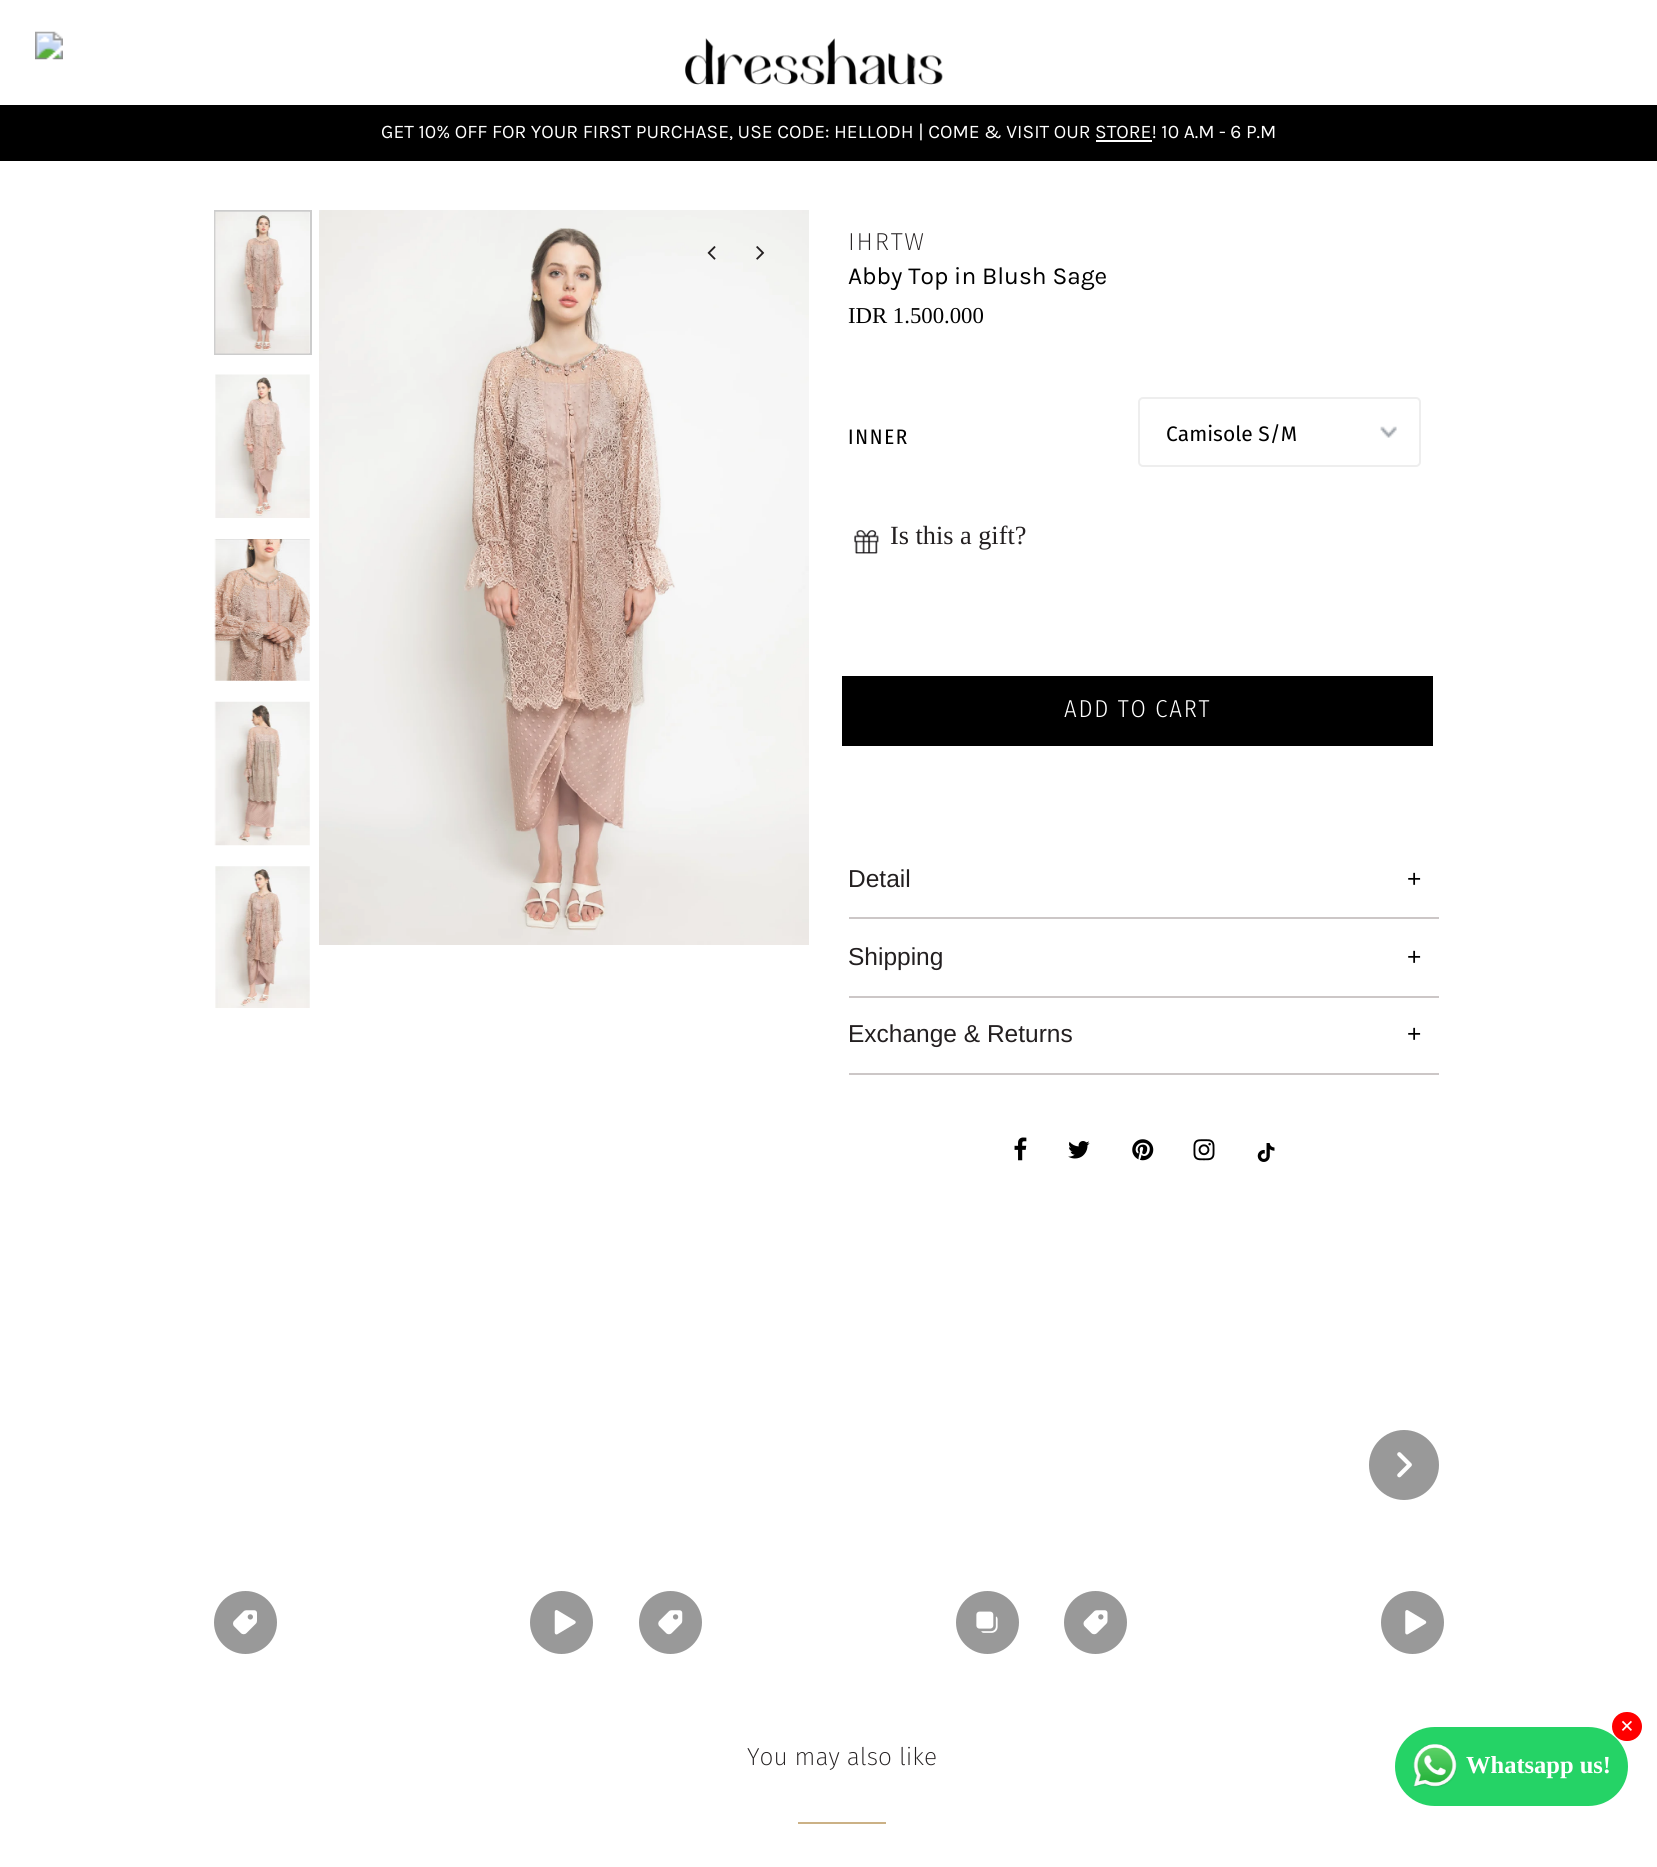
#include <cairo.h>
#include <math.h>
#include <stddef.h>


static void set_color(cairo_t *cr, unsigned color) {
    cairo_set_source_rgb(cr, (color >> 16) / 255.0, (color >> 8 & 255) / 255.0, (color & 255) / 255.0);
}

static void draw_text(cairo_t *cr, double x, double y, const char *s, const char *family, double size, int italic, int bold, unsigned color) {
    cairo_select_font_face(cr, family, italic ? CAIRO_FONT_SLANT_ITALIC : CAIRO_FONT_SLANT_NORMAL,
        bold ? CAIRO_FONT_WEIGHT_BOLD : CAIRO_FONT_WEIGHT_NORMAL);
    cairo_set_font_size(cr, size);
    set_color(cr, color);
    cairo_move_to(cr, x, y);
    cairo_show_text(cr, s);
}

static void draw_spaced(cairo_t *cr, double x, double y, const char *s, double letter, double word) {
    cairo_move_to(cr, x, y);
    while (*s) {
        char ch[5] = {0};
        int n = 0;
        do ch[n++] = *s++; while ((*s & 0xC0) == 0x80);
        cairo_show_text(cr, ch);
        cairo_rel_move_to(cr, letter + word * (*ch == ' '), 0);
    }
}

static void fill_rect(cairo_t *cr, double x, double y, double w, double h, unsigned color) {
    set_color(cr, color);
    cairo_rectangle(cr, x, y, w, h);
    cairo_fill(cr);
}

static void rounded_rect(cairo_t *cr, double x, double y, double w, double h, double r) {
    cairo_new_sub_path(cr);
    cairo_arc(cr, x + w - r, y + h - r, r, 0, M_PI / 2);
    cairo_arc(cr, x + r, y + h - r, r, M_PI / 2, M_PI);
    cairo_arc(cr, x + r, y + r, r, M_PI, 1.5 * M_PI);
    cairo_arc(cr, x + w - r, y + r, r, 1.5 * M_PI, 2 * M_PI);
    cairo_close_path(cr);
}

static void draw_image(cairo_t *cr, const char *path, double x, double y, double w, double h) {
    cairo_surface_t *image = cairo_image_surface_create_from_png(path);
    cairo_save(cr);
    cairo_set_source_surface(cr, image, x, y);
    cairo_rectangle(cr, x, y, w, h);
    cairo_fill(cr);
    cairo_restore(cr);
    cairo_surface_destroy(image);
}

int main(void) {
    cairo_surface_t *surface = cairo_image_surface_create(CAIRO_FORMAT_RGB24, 1657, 1867);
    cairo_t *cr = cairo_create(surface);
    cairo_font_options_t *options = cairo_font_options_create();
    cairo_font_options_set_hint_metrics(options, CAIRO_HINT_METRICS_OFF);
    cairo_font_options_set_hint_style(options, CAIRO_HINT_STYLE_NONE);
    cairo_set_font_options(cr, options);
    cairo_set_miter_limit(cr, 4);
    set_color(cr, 0xFFFFFF);
    cairo_paint(cr);
    draw_image(cr, "assets/img1.png", 35, 31, 28, 29);
    draw_image(cr, "assets/img2.png", 685, 38, 258, 47);
    fill_rect(cr, 0, 105, 1657, 56, 0x000000);
    draw_text(cr, 381, 138, "GET 10% OFF FOR YOUR FIRST PURCHASE, USE CODE: HELLODH | COME & VISIT OUR STORE! 10 A.M - 6 P.M", "Karla", 19.25, 0, 0, 0xFFFFFF);
    fill_rect(cr, 1096, 140, 56, 2, 0xFFFFFF);
    cairo_rectangle(cr, 215, 211, 96, 143);
    set_color(cr, 0xCCCCCC);
    cairo_stroke(cr);
    draw_image(cr, "assets/img3.png", 214, 211, 96, 143);
    draw_image(cr, "assets/img4.png", 215, 374, 95, 144);
    draw_image(cr, "assets/img5.png", 214, 539, 96, 142);
    draw_image(cr, "assets/img6.png", 214, 701, 96, 145);
    draw_image(cr, "assets/img7.png", 215, 866, 95, 142);
    draw_image(cr, "assets/img8.png", 319, 210, 490, 735);
    draw_image(cr, "assets/img9.png", 707, 246, 9, 14);
    draw_image(cr, "assets/img10.png", 756, 246, 9, 14);
    cairo_select_font_face(cr, "Fira Sans ExtraLight", CAIRO_FONT_SLANT_NORMAL, CAIRO_FONT_WEIGHT_NORMAL);
    cairo_set_font_size(cr, 24.5);
    set_color(cr, 0x231F20);
    draw_spaced(cr, 848, 250, "IHRTW", 1.75, 0);
    draw_text(cr, 848, 284, "Abby Top in Blush Sage", "Karla", 24.5, 0, 0, 0x000000);
    draw_text(cr, 848, 323, "IDR 1.500.000", "Liberation Serif", 22.75, 0, 0, 0x000000);
    cairo_select_font_face(cr, "Fira Sans Condensed", CAIRO_FONT_SLANT_NORMAL, CAIRO_FONT_WEIGHT_NORMAL);
    cairo_set_font_size(cr, 21);
    draw_spaced(cr, 848, 444, "INNER", 1.75, 0);
    draw_image(cr, "assets/img11.png", 1380, 426, 17, 12);
    rounded_rect(cr, 1139, 398, 281, 68, 4);
    set_color(cr, 0xEEEEEE);
    cairo_stroke(cr);
    draw_text(cr, 1166, 441, "Camisole S/M", "Fira Sans", 21, 0, 0, 0x000000);
    draw_image(cr, "assets/img12.png", 854, 530, 25, 24);
    draw_text(cr, 890, 544, "Is this a gift?", "Liberation Serif", 26.25, 0, 0, 0x231F20);
    fill_rect(cr, 842, 676, 591, 70, 0x000000);
    cairo_select_font_face(cr, "Fira Sans Condensed Light", CAIRO_FONT_SLANT_NORMAL, CAIRO_FONT_WEIGHT_NORMAL);
    cairo_set_font_size(cr, 24.5);
    set_color(cr, 0xFFFFFF);
    draw_spaced(cr, 1064, 717, "ADD TO CART", 1.75, 0);
    fill_rect(cr, 849, 917, 590, 2, 0xCCC7C7);
    draw_text(cr, 848, 887, "Detail", "Liberation Sans", 24.5, 0, 0, 0x231F20);
    draw_text(cr, 1407, 887, "+", "Liberation Sans", 24.5, 0, 0, 0x000000);
    fill_rect(cr, 849, 996, 590, 2, 0xCCC7C7);
    draw_text(cr, 848, 965, "Shipping", "Liberation Sans", 24.5, 0, 0, 0x231F20);
    draw_text(cr, 1407, 965, "+", "Liberation Sans", 24.5, 0, 0, 0x000000);
    fill_rect(cr, 849, 1073, 590, 2, 0xCCC7C7);
    draw_text(cr, 848, 1042, "Exchange & Returns", "Liberation Sans", 24.5, 0, 0, 0x231F20);
    draw_text(cr, 1407, 1042, "+", "Liberation Sans", 24.5, 0, 0, 0x000000);
    draw_image(cr, "assets/img13.png", 1014, 1137, 13, 24);
    draw_image(cr, "assets/img14.png", 1068, 1141, 22, 18);
    draw_image(cr, "assets/img15.png", 1132, 1139, 22, 22);
    draw_image(cr, "assets/img16.png", 1193, 1139, 22, 22);
    draw_image(cr, "assets/img17.png", 1257, 1143, 18, 19);
    set_color(cr, 0x999999);
    cairo_arc(cr, 1404, 1465, 35, 0, 2 * M_PI);
    cairo_fill(cr);
    draw_image(cr, "assets/img18.png", 1397, 1452, 15, 26);
    cairo_arc(cr, 245.5, 1622.5, 31.5, 0, 2 * M_PI);
    cairo_fill(cr);
    draw_image(cr, "assets/img19.png", 233, 1610, 24, 25);
    cairo_arc(cr, 561.5, 1622.5, 31.5, 0, 2 * M_PI);
    cairo_fill(cr);
    draw_image(cr, "assets/img20.png", 554, 1610, 22, 25);
    cairo_arc(cr, 670.5, 1622.5, 31.5, 0, 2 * M_PI);
    cairo_fill(cr);
    draw_image(cr, "assets/img21.png", 658, 1610, 25, 25);
    cairo_arc(cr, 987.5, 1622.5, 31.5, 0, 2 * M_PI);
    cairo_fill(cr);
    draw_image(cr, "assets/img22.png", 976, 1611, 22, 22);
    cairo_arc(cr, 1095.5, 1622.5, 31.5, 0, 2 * M_PI);
    cairo_fill(cr);
    draw_image(cr, "assets/img23.png", 1083, 1610, 25, 25);
    cairo_arc(cr, 1412.5, 1622.5, 31.5, 0, 2 * M_PI);
    cairo_fill(cr);
    draw_image(cr, "assets/img24.png", 1405, 1610, 22, 25);
    draw_text(cr, 747, 1765, "You may also like", "Fira Sans ExtraLight", 24.5, 0, 0, 0x231F20);
    fill_rect(cr, 798, 1822, 88, 2, 0xCBB186);
    set_color(cr, 0x25D366);
    rounded_rect(cr, 1395, 1727, 233, 79, 39.5);
    cairo_fill(cr);
    set_color(cr, 0xFF0000);
    rounded_rect(cr, 1612, 1712, 30, 29, 14.5);
    cairo_fill(cr);
    draw_text(cr, 1620, 1734, "×", "Liberation Serif", 24.5, 0, 1, 0xFFFFFF);
    draw_image(cr, "assets/img25.png", 1413, 1744, 44, 44);
    draw_text(cr, 1466, 1773, "Whatsapp us!", "Liberation Serif", 24.5, 0, 1, 0xFFFFFF);
    cairo_surface_write_to_png(surface, "output.png");
    cairo_font_options_destroy(options);
    cairo_destroy(cr);
    cairo_surface_destroy(surface);
    return 0;
}
